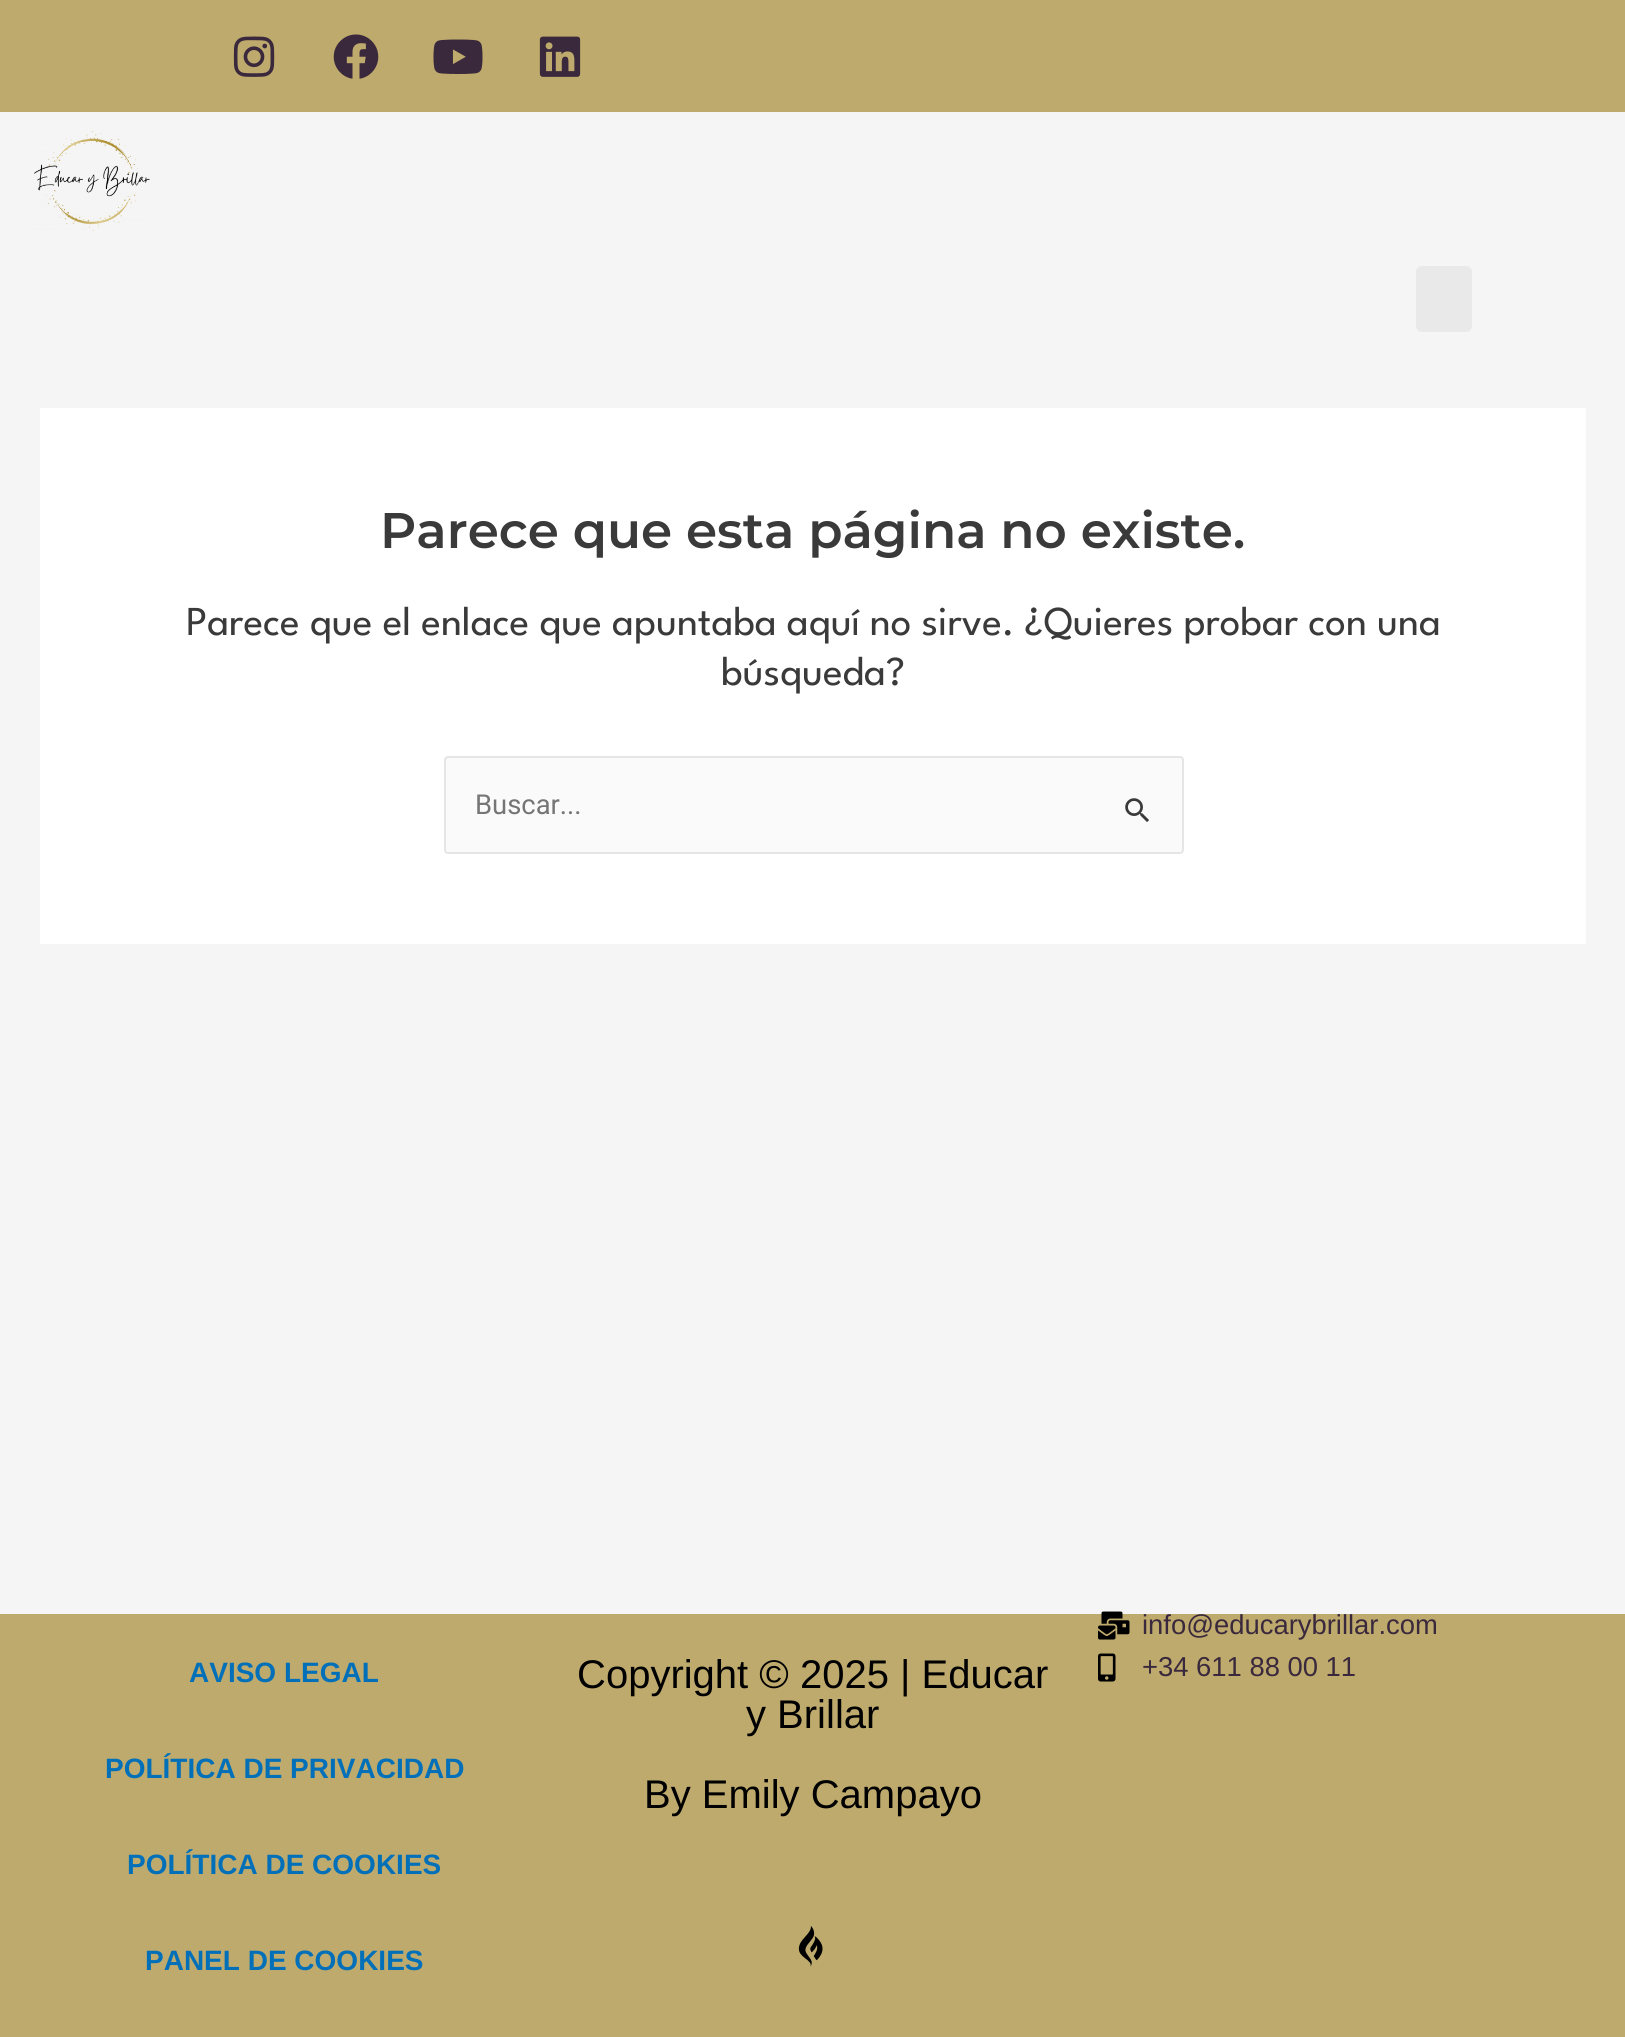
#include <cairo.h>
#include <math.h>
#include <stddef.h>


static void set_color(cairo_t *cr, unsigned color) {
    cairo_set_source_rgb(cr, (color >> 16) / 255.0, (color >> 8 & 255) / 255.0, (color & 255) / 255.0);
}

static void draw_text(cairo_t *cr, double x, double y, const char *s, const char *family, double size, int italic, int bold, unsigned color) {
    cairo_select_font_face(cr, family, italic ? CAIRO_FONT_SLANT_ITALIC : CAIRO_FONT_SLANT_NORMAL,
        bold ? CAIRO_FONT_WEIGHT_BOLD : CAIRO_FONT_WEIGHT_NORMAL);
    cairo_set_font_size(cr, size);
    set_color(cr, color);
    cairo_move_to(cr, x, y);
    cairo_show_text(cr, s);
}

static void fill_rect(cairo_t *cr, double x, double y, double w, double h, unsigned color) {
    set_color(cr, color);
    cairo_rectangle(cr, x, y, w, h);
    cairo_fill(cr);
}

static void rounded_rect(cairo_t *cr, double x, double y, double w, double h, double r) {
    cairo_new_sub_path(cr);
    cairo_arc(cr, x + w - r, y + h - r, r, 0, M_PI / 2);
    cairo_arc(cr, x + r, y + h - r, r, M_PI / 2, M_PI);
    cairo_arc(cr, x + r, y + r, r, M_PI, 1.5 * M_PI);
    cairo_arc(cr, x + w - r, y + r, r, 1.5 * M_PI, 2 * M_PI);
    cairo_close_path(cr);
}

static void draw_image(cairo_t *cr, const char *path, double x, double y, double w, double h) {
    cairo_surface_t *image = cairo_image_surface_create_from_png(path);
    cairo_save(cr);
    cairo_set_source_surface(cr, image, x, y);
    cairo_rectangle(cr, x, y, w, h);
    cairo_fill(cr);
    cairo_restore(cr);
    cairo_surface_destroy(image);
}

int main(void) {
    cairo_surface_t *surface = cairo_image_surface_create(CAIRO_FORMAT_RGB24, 1625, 2037);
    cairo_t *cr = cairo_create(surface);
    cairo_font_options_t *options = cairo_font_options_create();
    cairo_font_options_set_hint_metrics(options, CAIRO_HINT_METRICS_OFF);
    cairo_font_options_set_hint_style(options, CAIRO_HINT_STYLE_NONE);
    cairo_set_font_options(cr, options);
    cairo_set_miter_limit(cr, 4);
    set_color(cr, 0xF5F5F5);
    cairo_paint(cr);
    fill_rect(cr, 0, 0, 1625, 112, 0xBFAA6D);
    draw_image(cr, "assets/img1.png", 233, 36, 42, 41);
    draw_image(cr, "assets/img2.png", 333, 34, 46, 45);
    draw_image(cr, "assets/img3.png", 433, 39, 50, 35);
    draw_image(cr, "assets/img4.png", 539, 36, 42, 41);
    draw_image(cr, "assets/img5.png", 34, 131, 116, 100);
    set_color(cr, 0xE9E9E9);
    rounded_rect(cr, 1416, 266, 56, 66, 6);
    cairo_fill(cr);
    fill_rect(cr, 40, 408, 1546, 536, 0xFFFFFF);
    draw_text(cr, 380, 548, "Parece que esta página no existe.", "Montserrat SemiBold", 50, 0, 0, 0x3A3A3A);
    draw_text(cr, 186, 635, "Parece que el enlace que apuntaba aquí no sirve. ¿Quieres probar con una", "League Spartan", 41.05, 0, 0, 0x3A3A3A);
    draw_text(cr, 721, 685, "búsqueda?", "League Spartan", 41.05, 0, 0, 0x3A3A3A);
    set_color(cr, 0xFAFAFA);
    rounded_rect(cr, 445, 757, 738, 96, 3);
    cairo_fill_preserve(cr);
    set_color(cr, 0xE5E5E5);
    cairo_stroke(cr);
    draw_text(cr, 475, 814, "Buscar...", "Roboto", 27.4, 0, 0, 0x757575);
    draw_image(cr, "assets/img6.png", 1125, 798, 24, 24);
    fill_rect(cr, 0, 1614, 1625, 423, 0xBFAA6D);
    draw_image(cr, "assets/img7.png", 1098, 1611, 32, 29);
    draw_text(cr, 1142, 1634, "info@educarybrillar.com", "Liberation Sans", 27.4, 0, 0, 0x3A293C);
    draw_image(cr, "assets/img8.png", 1098, 1653, 18, 29);
    draw_text(cr, 1142, 1676, "+34 611 88 00 11", "Liberation Sans", 27.4, 0, 0, 0x3A293C);
    draw_text(cr, 189, 1682, "AVISO LEGAL", "Liberation Sans", 28, 0, 1, 0x0170B9);
    draw_text(cr, 105, 1778, "POLÍTICA DE PRIVACIDAD", "Liberation Sans", 28, 0, 1, 0x0170B9);
    draw_text(cr, 127, 1874, "POLÍTICA DE COOKIES", "Liberation Sans", 28, 0, 1, 0x0170B9);
    draw_text(cr, 145, 1970, "PANEL DE COOKIES", "Liberation Sans", 28, 0, 1, 0x0170B9);
    draw_text(cr, 577, 1688, "Copyright © 2025 | Educar", "Liberation Sans", 40, 0, 0, 0x000000);
    draw_text(cr, 746, 1728, "y Brillar", "Liberation Sans", 40, 0, 0, 0x000000);
    draw_text(cr, 644, 1808, "By Emily Campayo", "Liberation Sans", 40, 0, 0, 0x000000);
    draw_image(cr, "assets/img9.png", 798, 1926, 25, 41);
    cairo_surface_write_to_png(surface, "output.png");
    cairo_font_options_destroy(options);
    cairo_destroy(cr);
    cairo_surface_destroy(surface);
    return 0;
}
